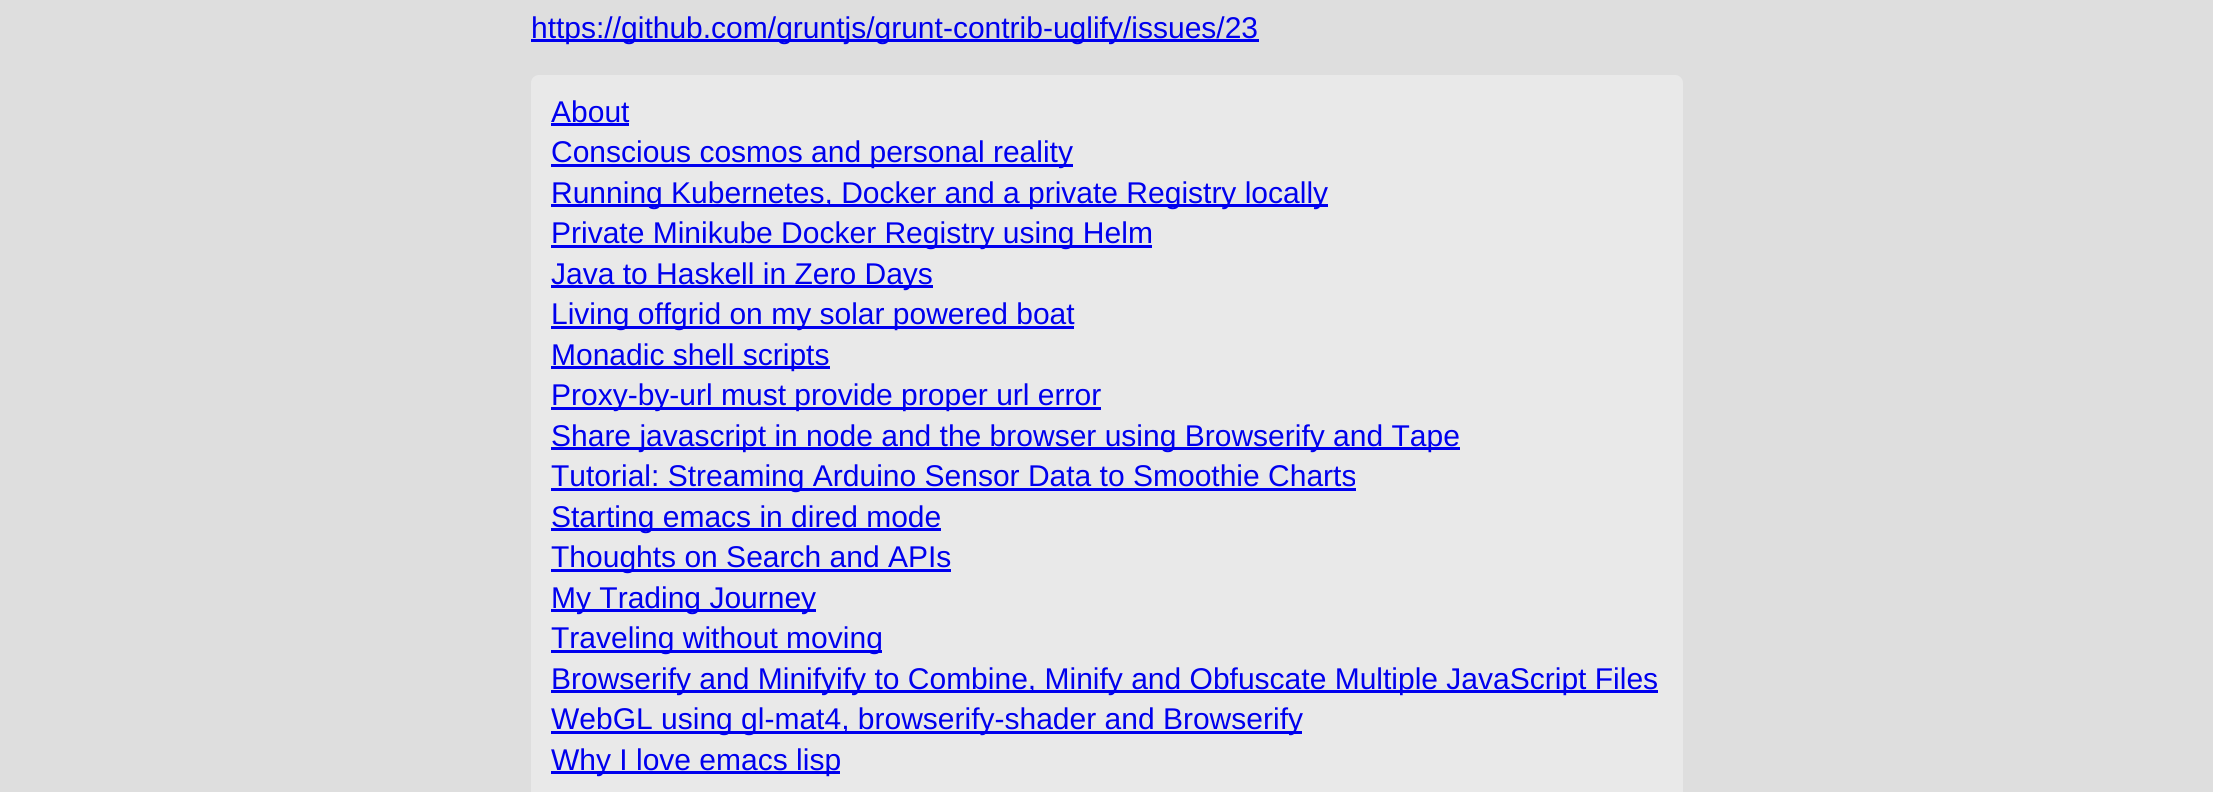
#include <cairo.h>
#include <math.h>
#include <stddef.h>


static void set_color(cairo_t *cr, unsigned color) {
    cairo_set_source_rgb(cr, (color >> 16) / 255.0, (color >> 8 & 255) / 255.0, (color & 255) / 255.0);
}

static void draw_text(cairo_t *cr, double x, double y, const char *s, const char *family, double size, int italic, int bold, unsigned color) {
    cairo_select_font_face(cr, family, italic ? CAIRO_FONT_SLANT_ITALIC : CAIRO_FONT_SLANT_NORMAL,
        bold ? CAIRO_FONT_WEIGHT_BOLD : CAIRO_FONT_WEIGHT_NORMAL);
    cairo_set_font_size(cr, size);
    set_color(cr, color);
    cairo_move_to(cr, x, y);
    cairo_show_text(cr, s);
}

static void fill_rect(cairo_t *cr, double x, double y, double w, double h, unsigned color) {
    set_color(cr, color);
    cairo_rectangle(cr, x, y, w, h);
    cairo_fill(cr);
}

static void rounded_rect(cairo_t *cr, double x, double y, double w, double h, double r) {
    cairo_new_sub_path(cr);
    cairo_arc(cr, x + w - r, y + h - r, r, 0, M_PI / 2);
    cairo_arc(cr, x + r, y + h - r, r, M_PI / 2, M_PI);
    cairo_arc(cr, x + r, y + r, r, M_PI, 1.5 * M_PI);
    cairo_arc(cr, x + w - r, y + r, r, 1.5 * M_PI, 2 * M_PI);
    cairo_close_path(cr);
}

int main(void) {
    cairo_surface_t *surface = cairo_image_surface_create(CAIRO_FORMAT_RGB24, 2213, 792);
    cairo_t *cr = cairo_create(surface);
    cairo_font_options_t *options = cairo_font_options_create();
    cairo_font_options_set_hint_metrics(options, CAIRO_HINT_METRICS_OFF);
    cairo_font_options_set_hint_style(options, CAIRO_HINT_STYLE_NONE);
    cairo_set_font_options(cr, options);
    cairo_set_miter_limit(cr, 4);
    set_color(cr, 0xDEDEDE);
    cairo_paint(cr);
    fill_rect(cr, 531, 39, 728, 3, 0x0000EE);
    draw_text(cr, 531, 38, "https://github.com/gruntjs/grunt-contrib-uglify/issues/23", "Liberation Sans", 30, 0, 0, 0x0000EE);
    set_color(cr, 0xE9E9E9);
    rounded_rect(cr, 531, 75, 1152, 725, 8);
    cairo_fill(cr);
    draw_text(cr, 551, 122, "About", "Liberation Sans", 30, 0, 0, 0x0000EE);
    fill_rect(cr, 551, 123, 78, 3, 0x0000EE);
    fill_rect(cr, 551, 164, 522, 3, 0x0000EE);
    draw_text(cr, 551, 162, "Conscious cosmos and personal reality", "Liberation Sans", 30, 0, 0, 0x0000EE);
    fill_rect(cr, 551, 204, 777, 3, 0x0000EE);
    draw_text(cr, 551, 203, "Running Kubernetes, Docker and a private Registry locally", "Liberation Sans", 30, 0, 0, 0x0000EE);
    fill_rect(cr, 551, 245, 601, 3, 0x0000EE);
    draw_text(cr, 551, 243, "Private Minikube Docker Registry using Helm", "Liberation Sans", 30, 0, 0, 0x0000EE);
    fill_rect(cr, 551, 285, 382, 3, 0x0000EE);
    draw_text(cr, 551, 284, "Java to Haskell in Zero Days", "Liberation Sans", 30, 0, 0, 0x0000EE);
    fill_rect(cr, 551, 326, 523, 3, 0x0000EE);
    draw_text(cr, 551, 324, "Living offgrid on my solar powered boat", "Liberation Sans", 30, 0, 0, 0x0000EE);
    fill_rect(cr, 551, 366, 279, 3, 0x0000EE);
    draw_text(cr, 551, 365, "Monadic shell scripts", "Liberation Sans", 30, 0, 0, 0x0000EE);
    fill_rect(cr, 551, 407, 550, 3, 0x0000EE);
    draw_text(cr, 551, 405, "Proxy-by-url must provide proper url error", "Liberation Sans", 30, 0, 0, 0x0000EE);
    fill_rect(cr, 551, 447, 909, 3, 0x0000EE);
    draw_text(cr, 551, 446, "Share javascript in node and the browser using Browserify and Tape", "Liberation Sans", 30, 0, 0, 0x0000EE);
    fill_rect(cr, 551, 488, 805, 3, 0x0000EE);
    draw_text(cr, 551, 486, "Tutorial: Streaming Arduino Sensor Data to Smoothie Charts", "Liberation Sans", 30, 0, 0, 0x0000EE);
    fill_rect(cr, 551, 528, 390, 3, 0x0000EE);
    draw_text(cr, 551, 527, "Starting emacs in dired mode", "Liberation Sans", 30, 0, 0, 0x0000EE);
    fill_rect(cr, 551, 569, 400, 3, 0x0000EE);
    draw_text(cr, 551, 567, "Thoughts on Search and APIs", "Liberation Sans", 30, 0, 0, 0x0000EE);
    fill_rect(cr, 551, 609, 265, 3, 0x0000EE);
    draw_text(cr, 551, 608, "My Trading Journey", "Liberation Sans", 30, 0, 0, 0x0000EE);
    fill_rect(cr, 551, 650, 331, 3, 0x0000EE);
    draw_text(cr, 551, 648, "Traveling without moving", "Liberation Sans", 30, 0, 0, 0x0000EE);
    fill_rect(cr, 551, 690, 1107, 3, 0x0000EE);
    draw_text(cr, 551, 689, "Browserify and Minifyify to Combine, Minify and Obfuscate Multiple JavaScript Files", "Liberation Sans", 30, 0, 0, 0x0000EE);
    fill_rect(cr, 551, 731, 751, 3, 0x0000EE);
    draw_text(cr, 551, 729, "WebGL using gl-mat4, browserify-shader and Browserify", "Liberation Sans", 30, 0, 0, 0x0000EE);
    fill_rect(cr, 551, 771, 289, 3, 0x0000EE);
    draw_text(cr, 551, 770, "Why I love emacs lisp", "Liberation Sans", 30, 0, 0, 0x0000EE);
    cairo_surface_write_to_png(surface, "output.png");
    cairo_font_options_destroy(options);
    cairo_destroy(cr);
    cairo_surface_destroy(surface);
    return 0;
}
